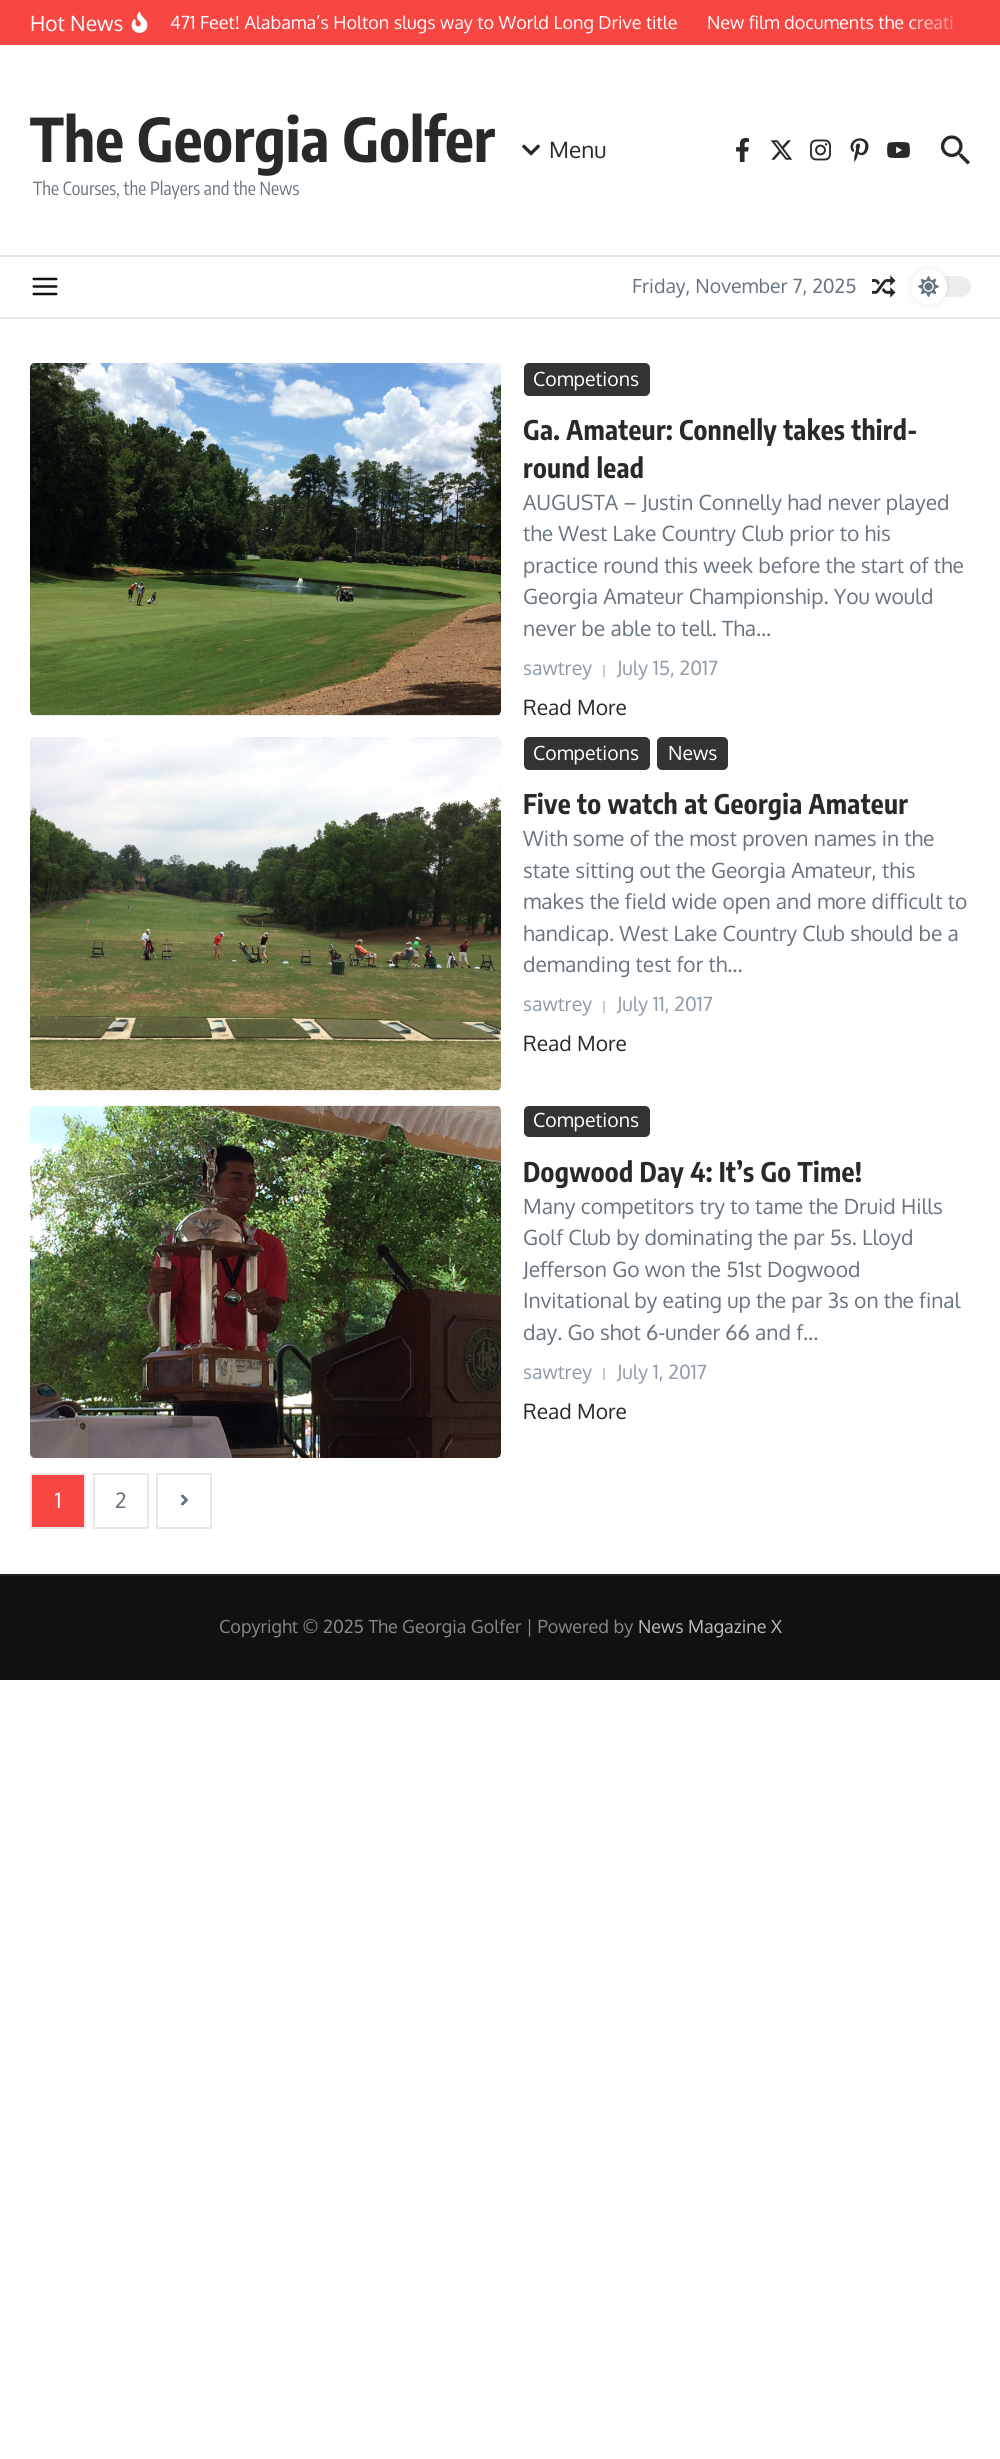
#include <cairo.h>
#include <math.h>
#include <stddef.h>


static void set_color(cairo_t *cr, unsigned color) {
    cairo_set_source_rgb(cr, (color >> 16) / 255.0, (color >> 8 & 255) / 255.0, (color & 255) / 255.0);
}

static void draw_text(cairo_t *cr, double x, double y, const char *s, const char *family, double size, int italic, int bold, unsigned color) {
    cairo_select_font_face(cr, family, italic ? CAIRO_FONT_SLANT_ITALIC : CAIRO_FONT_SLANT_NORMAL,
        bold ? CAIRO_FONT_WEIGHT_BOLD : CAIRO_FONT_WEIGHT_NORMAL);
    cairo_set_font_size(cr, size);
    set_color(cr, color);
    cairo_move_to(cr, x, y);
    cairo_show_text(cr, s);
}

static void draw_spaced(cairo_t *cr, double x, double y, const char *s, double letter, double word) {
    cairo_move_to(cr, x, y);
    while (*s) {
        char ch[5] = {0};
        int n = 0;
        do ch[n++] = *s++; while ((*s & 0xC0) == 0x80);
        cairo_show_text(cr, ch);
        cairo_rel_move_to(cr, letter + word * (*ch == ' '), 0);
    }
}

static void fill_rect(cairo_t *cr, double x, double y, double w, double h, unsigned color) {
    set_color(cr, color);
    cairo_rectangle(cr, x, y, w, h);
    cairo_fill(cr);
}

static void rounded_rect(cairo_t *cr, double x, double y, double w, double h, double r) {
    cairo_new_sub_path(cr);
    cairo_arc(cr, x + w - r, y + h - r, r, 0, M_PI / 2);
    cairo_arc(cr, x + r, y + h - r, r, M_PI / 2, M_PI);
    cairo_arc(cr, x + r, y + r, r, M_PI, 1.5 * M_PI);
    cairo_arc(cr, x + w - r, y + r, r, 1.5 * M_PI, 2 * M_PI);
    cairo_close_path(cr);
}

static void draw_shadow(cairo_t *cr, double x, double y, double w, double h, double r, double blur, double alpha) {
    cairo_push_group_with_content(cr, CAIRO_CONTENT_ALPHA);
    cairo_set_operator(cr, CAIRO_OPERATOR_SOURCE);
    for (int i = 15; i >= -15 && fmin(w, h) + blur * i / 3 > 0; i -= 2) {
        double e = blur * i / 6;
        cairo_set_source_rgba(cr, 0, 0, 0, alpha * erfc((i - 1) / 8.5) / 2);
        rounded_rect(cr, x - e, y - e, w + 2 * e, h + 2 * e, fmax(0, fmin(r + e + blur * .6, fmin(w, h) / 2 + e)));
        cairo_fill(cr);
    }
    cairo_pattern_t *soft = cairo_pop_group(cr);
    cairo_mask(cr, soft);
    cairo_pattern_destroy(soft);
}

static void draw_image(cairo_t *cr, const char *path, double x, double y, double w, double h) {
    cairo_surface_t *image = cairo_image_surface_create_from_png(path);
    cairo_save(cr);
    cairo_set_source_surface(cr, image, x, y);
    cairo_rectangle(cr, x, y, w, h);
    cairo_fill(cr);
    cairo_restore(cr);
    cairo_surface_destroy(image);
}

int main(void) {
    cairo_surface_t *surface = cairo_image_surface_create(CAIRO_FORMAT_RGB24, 1000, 2459);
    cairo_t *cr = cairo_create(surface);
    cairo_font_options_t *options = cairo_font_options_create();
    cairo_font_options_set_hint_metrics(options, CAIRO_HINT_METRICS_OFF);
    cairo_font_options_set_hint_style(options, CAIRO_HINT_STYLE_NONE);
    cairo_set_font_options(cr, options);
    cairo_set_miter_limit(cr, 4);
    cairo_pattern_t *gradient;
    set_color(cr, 0xFFFFFF);
    cairo_paint(cr);
    fill_rect(cr, 0, 0, 1000, 45, 0xF84643);
    draw_text(cr, 30, 31, "Hot News", "Oxygen", 21, 0, 0, 0xFFFFFF);
    draw_image(cr, "assets/img1.png", 131, 12, 17, 21);
    draw_text(cr, 170, 29, "471 Feet! Alabama’s Holton slugs way to World Long Drive title", "Oxygen", 18, 0, 0, 0xFFFFFF);
    draw_text(cr, 707, 29, "New film documents the creati", "Oxygen", 18, 0, 0, 0xFFFFFF);
    gradient = cairo_pattern_create_linear(905, 23, 980, 22);
    cairo_pattern_add_color_stop_rgba(gradient, 0, 0.973, 0.275, 0.263, 0);
    cairo_pattern_add_color_stop_rgba(gradient, 1, 0.973, 0.275, 0.263, 1);
    cairo_set_source(cr, gradient);
    cairo_pattern_destroy(gradient);
    cairo_rectangle(cr, 909, 15, 44, 15);
    cairo_fill(cr);
    fill_rect(cr, 0, 255, 1000, 2, 0xE8E8E8);
    draw_text(cr, 30, 162, "The Georgia Golfer", "Encode Sans Condensed", 60, 0, 1, 0x292929);
    draw_text(cr, 33, 195, "The Courses, the Players and the News", "Encode Sans Condensed", 18, 0, 0, 0x67737E);
    draw_image(cr, "assets/img2.png", 522, 144, 18, 12);
    draw_text(cr, 549, 158, "Menu", "Oxygen", 22.5, 0, 0, 0x292929);
    draw_image(cr, "assets/img3.png", 736, 138, 13, 24);
    draw_image(cr, "assets/img4.png", 770, 140, 23, 20);
    draw_image(cr, "assets/img5.png", 810, 139, 21, 22);
    draw_image(cr, "assets/img6.png", 850, 138, 19, 24);
    draw_image(cr, "assets/img7.png", 887, 142, 23, 16);
    draw_image(cr, "assets/img8.png", 941, 135, 29, 30);
    fill_rect(cr, 0, 317, 1000, 2, 0xE8E8E8);
    draw_image(cr, "assets/img9.png", 32, 277, 26, 19);
    draw_text(cr, 632, 293, "Friday, November 7, 2025", "Oxygen", 19.5, 0, 0, 0x67737E);
    draw_image(cr, "assets/img10.png", 872, 275, 24, 23);
    set_color(cr, 0xEDEDED);
    rounded_rect(cr, 911, 276, 60, 21, 10.5);
    cairo_fill(cr);
    set_color(cr, 0x000000);
    draw_shadow(cr, 911, 269, 36, 36, 18, 3, 0.1);
    set_color(cr, 0xFFFFFF);
    cairo_arc(cr, 929, 287, 18, 0, 2 * M_PI);
    cairo_fill(cr);
    draw_image(cr, "assets/img11.png", 918, 276, 21, 21);
    draw_image(cr, "assets/img12.png", 30, 363, 471, 353);
    set_color(cr, 0x333333);
    rounded_rect(cr, 524, 363, 126, 33, 5);
    cairo_fill(cr);
    draw_text(cr, 533, 386, "Competions", "Oxygen", 19.5, 0, 0, 0xFFFFFF);
    cairo_select_font_face(cr, "Encode Sans Condensed", CAIRO_FONT_SLANT_NORMAL, CAIRO_FONT_WEIGHT_BOLD);
    cairo_set_font_size(cr, 27);
    set_color(cr, 0x292929);
    draw_spaced(cr, 523, 440, "Ga. Amateur: Connelly takes third-", 0.3, 0);
    draw_spaced(cr, 523, 478, "round lead", 0.3, 0);
    draw_text(cr, 523, 510, "AUGUSTA – Justin Connelly had never played", "Oxygen", 21, 0, 0, 0x67737E);
    draw_text(cr, 523, 541, "the West Lake Country Club prior to his", "Oxygen", 21, 0, 0, 0x67737E);
    draw_text(cr, 523, 573, "practice round this week before the start of the", "Oxygen", 21, 0, 0, 0x67737E);
    draw_text(cr, 523, 604, "Georgia Amateur Championship. You would", "Oxygen", 21, 0, 0, 0x67737E);
    draw_text(cr, 523, 636, "never be able to tell. Tha...", "Oxygen", 21, 0, 0, 0x67737E);
    draw_text(cr, 523, 675, "sawtrey", "Oxygen", 19.5, 0, 0, 0x8E9BA7);
    fill_rect(cr, 603, 665, 2, 12, 0xC7CDD3);
    draw_text(cr, 617, 675, "July 15, 2017", "Oxygen", 19.5, 0, 0, 0x8E9BA7);
    draw_text(cr, 523, 715, "Read More", "Oxygen", 21, 0, 0, 0x292929);
    draw_image(cr, "assets/img13.png", 30, 737, 471, 354);
    set_color(cr, 0x333333);
    rounded_rect(cr, 524, 737, 126, 33, 5);
    cairo_fill(cr);
    draw_text(cr, 533, 760, "Competions", "Oxygen", 19.5, 0, 0, 0xFFFFFF);
    set_color(cr, 0x333333);
    rounded_rect(cr, 657, 737, 71, 33, 5);
    cairo_fill(cr);
    draw_text(cr, 668, 760, "News", "Oxygen", 19.5, 0, 0, 0xFFFFFF);
    cairo_select_font_face(cr, "Encode Sans Condensed", CAIRO_FONT_SLANT_NORMAL, CAIRO_FONT_WEIGHT_BOLD);
    cairo_set_font_size(cr, 27);
    set_color(cr, 0x292929);
    draw_spaced(cr, 523, 814, "Five to watch at Georgia Amateur", 0.3, 0);
    draw_text(cr, 523, 846, "With some of the most proven names in the", "Oxygen", 21, 0, 0, 0x67737E);
    draw_text(cr, 523, 878, "state sitting out the Georgia Amateur, this", "Oxygen", 21, 0, 0, 0x67737E);
    draw_text(cr, 523, 909, "makes the field wide open and more difficult to", "Oxygen", 21, 0, 0, 0x67737E);
    draw_text(cr, 523, 941, "handicap. West Lake Country Club should be a", "Oxygen", 21, 0, 0, 0x67737E);
    draw_text(cr, 523, 972, "demanding test for th...", "Oxygen", 21, 0, 0, 0x67737E);
    draw_text(cr, 523, 1011, "sawtrey", "Oxygen", 19.5, 0, 0, 0x8E9BA7);
    fill_rect(cr, 603, 1001, 2, 12, 0xC7CDD3);
    draw_text(cr, 617, 1011, "July 11, 2017", "Oxygen", 19.5, 0, 0, 0x8E9BA7);
    draw_text(cr, 523, 1051, "Read More", "Oxygen", 21, 0, 0, 0x292929);
    draw_image(cr, "assets/img14.png", 30, 1105, 471, 353);
    set_color(cr, 0x333333);
    rounded_rect(cr, 524, 1106, 126, 31, 5);
    cairo_fill(cr);
    draw_text(cr, 533, 1127, "Competions", "Oxygen", 19.5, 0, 0, 0xFFFFFF);
    cairo_select_font_face(cr, "Encode Sans Condensed", CAIRO_FONT_SLANT_NORMAL, CAIRO_FONT_WEIGHT_BOLD);
    cairo_set_font_size(cr, 27);
    set_color(cr, 0x292929);
    draw_spaced(cr, 523, 1182, "Dogwood Day 4: It’s Go Time!", 0.3, 0);
    draw_text(cr, 523, 1214, "Many competitors try to tame the Druid Hills", "Oxygen", 21, 0, 0, 0x67737E);
    draw_text(cr, 523, 1245, "Golf Club by dominating the par 5s. Lloyd", "Oxygen", 21, 0, 0, 0x67737E);
    draw_text(cr, 523, 1277, "Jefferson Go won the 51st Dogwood", "Oxygen", 21, 0, 0, 0x67737E);
    draw_text(cr, 523, 1308, "Invitational by eating up the par 3s on the final", "Oxygen", 21, 0, 0, 0x67737E);
    draw_text(cr, 523, 1340, "day. Go shot 6-under 66 and f...", "Oxygen", 21, 0, 0, 0x67737E);
    draw_text(cr, 523, 1379, "sawtrey", "Oxygen", 19.5, 0, 0, 0x8E9BA7);
    fill_rect(cr, 603, 1368, 2, 12, 0xC7CDD3);
    draw_text(cr, 617, 1379, "July 1, 2017", "Oxygen", 19.5, 0, 0, 0x8E9BA7);
    draw_text(cr, 523, 1419, "Read More", "Oxygen", 21, 0, 0, 0x292929);
    set_color(cr, 0xF84643);
    cairo_rectangle(cr, 31, 1474, 54, 54);
    cairo_fill_preserve(cr);
    set_color(cr, 0xE8E8E8);
    cairo_stroke(cr);
    draw_text(cr, 55, 1508, "1", "Oxygen", 21, 0, 0, 0xFFFFFF);
    cairo_rectangle(cr, 94, 1474, 54, 54);
    set_color(cr, 0xE8E8E8);
    cairo_stroke(cr);
    draw_text(cr, 115, 1508, "2", "Oxygen", 21, 0, 0, 0x67737E);
    cairo_rectangle(cr, 157, 1474, 54, 54);
    set_color(cr, 0xE8E8E8);
    cairo_stroke(cr);
    draw_image(cr, "assets/img15.png", 181, 1494, 7, 12);
    fill_rect(cr, 0, 1576, 1000, 104, 0x111111);
    fill_rect(cr, 0, 1574, 1000, 2, 0x222222);
    draw_text(cr, 219, 1633, "Copyright © 2025 The Georgia Golfer | Powered by", "Oxygen", 18, 0, 0, 0x888888);
    draw_text(cr, 638, 1633, "News Magazine X", "Oxygen", 18, 0, 0, 0xBCBCBC);
    cairo_surface_write_to_png(surface, "output.png");
    cairo_font_options_destroy(options);
    cairo_destroy(cr);
    cairo_surface_destroy(surface);
    return 0;
}
